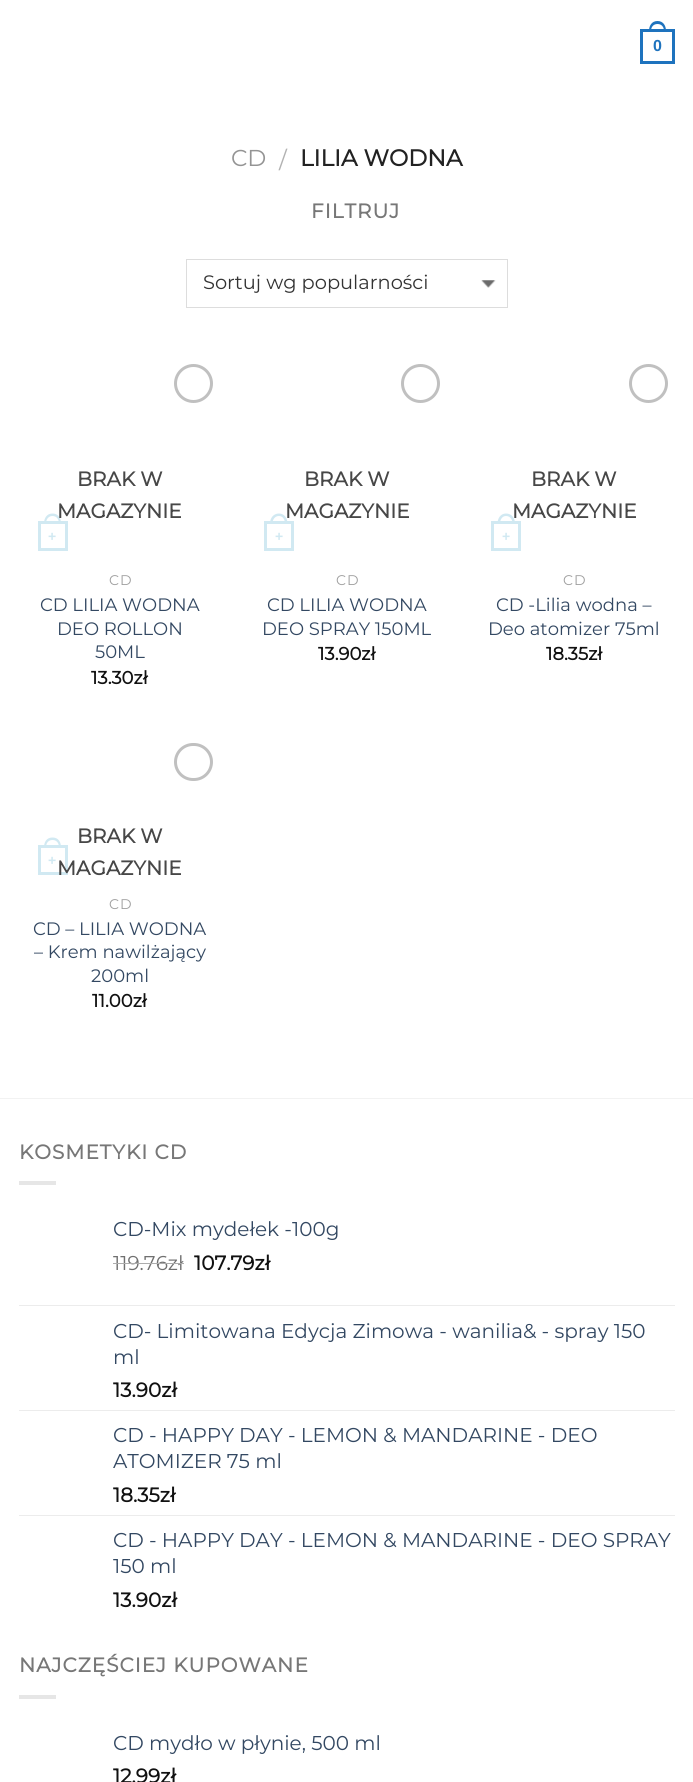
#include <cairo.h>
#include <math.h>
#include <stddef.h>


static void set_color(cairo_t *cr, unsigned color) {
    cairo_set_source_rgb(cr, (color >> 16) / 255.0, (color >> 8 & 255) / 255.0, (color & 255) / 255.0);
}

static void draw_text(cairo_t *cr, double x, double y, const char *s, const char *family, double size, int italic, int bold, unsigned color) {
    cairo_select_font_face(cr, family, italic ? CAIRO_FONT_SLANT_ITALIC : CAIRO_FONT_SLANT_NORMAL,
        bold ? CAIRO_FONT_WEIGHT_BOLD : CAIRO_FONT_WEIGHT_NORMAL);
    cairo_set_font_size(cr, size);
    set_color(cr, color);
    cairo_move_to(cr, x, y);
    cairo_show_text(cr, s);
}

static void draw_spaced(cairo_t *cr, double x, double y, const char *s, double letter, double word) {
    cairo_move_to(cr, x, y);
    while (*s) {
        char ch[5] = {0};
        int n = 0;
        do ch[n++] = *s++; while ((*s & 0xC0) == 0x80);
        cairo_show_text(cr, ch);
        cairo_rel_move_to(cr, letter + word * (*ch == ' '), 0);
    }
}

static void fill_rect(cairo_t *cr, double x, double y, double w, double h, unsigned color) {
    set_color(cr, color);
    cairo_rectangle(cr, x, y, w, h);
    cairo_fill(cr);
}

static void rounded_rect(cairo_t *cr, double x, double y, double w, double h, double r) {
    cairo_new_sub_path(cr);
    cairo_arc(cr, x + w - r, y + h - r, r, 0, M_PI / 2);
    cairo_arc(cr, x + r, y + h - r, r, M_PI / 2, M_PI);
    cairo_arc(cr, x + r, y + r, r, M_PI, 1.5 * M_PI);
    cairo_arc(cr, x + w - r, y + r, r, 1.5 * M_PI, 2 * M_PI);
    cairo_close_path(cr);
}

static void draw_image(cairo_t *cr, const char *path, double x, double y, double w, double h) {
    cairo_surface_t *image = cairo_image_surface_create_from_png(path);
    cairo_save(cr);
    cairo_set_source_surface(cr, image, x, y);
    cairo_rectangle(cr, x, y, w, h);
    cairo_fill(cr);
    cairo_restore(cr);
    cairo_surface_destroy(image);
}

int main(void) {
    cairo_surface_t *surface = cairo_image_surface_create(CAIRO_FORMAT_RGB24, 693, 1782);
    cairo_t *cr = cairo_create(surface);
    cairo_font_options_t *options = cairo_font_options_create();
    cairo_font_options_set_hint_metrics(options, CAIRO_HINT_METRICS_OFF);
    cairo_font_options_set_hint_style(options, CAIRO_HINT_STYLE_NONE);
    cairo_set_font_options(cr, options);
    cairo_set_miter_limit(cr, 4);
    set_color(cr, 0xFFFFFF);
    cairo_paint(cr);
    cairo_rectangle(cr, 641.5, 30.5, 32, 32);
    set_color(cr, 0x1E73BE);
    cairo_set_line_width(cr, 3);
    cairo_stroke(cr);
    cairo_set_fill_rule(cr, CAIRO_FILL_RULE_EVEN_ODD);
    cairo_new_path(cr);
    cairo_move_to(cr, 657.5, 21);
    cairo_curve_to(cr, 663.5, 21, 666, 26, 666, 31);
    cairo_line_to(cr, 649, 31);
    cairo_curve_to(cr, 649, 26, 651.5, 21, 657.5, 21);
    cairo_close_path(cr);
    cairo_move_to(cr, 657.5, 24);
    cairo_curve_to(cr, 662, 24, 664, 27.5, 664, 31);
    cairo_line_to(cr, 651, 31);
    cairo_curve_to(cr, 651, 27.5, 653, 24, 657.5, 24);
    cairo_close_path(cr);
    cairo_fill(cr);
    draw_text(cr, 653, 51, "0", "Liberation Sans", 16, 0, 1, 0x1E73BE);
    draw_text(cr, 231, 166, "CD", "Montserrat Thin", 23, 0, 0, 0x949494);
    draw_text(cr, 279, 168, "/", "Montserrat Thin", 23, 0, 0, 0xB2B2B2);
    draw_text(cr, 300, 166, "LILIA WODNA", "Montserrat", 23, 0, 1, 0x222222);
    cairo_set_font_size(cr, 20);
    set_color(cr, 0x777777);
    draw_spaced(cr, 311, 218, "FILTRUJ", 1, 0);
    draw_image(cr, "assets/img1.png", 481, 280, 15, 8);
    cairo_rectangle(cr, 186.5, 259.5, 321, 48);
    set_color(cr, 0xDDDDDD);
    cairo_set_line_width(cr, 1);
    cairo_stroke(cr);
    draw_text(cr, 203, 289, "Sortuj wg popularności", "Montserrat Thin", 19.4, 0, 0, 0x333333);
    cairo_new_path(cr);
    cairo_arc(cr, 193.5, 383.5, 18, 0, 2 * M_PI);
    set_color(cr, 0xC0C0C0);
    cairo_set_line_width(cr, 3);
    cairo_stroke(cr);
    draw_text(cr, 77, 486, "BRAK W", "Montserrat", 20, 0, 1, 0x474747);
    cairo_rectangle(cr, 39.5, 522.5, 27, 27);
    set_color(cr, 0xD1E9F2);
    cairo_stroke(cr);
    cairo_new_path(cr);
    cairo_move_to(cr, 52.5, 513.5);
    cairo_curve_to(cr, 58.5, 513.5, 61, 518.5, 61, 523.5);
    cairo_line_to(cr, 44, 523.5);
    cairo_curve_to(cr, 44, 518.5, 46.5, 513.5, 52.5, 513.5);
    cairo_close_path(cr);
    cairo_move_to(cr, 52.5, 516);
    cairo_curve_to(cr, 57, 516, 59, 520, 59, 523.5);
    cairo_line_to(cr, 46, 523.5);
    cairo_curve_to(cr, 46, 520, 48, 516, 52.5, 516);
    cairo_close_path(cr);
    cairo_fill(cr);
    draw_text(cr, 57, 518, "MAGAZYNIE", "Montserrat", 20, 0, 1, 0x474747);
    draw_text(cr, 48, 541, "+", "Liberation Sans", 14, 0, 1, 0xD1E9F2);
    cairo_select_font_face(cr, "Montserrat Thin", CAIRO_FONT_SLANT_NORMAL, CAIRO_FONT_WEIGHT_NORMAL);
    set_color(cr, 0xA0A0A0);
    draw_spaced(cr, 109, 585, "CD", 1, 0);
    draw_text(cr, 40, 611, "CD LILIA WODNA", "Montserrat Thin", 18, 0, 0, 0x334862);
    draw_text(cr, 57, 635, "DEO ROLLON", "Montserrat Thin", 18, 0, 0, 0x334862);
    draw_text(cr, 95, 658, "50ML", "Montserrat Thin", 18, 0, 0, 0x334862);
    draw_text(cr, 91, 684, "13.30zł", "Montserrat", 18, 0, 1, 0x111111);
    cairo_new_path(cr);
    cairo_arc(cr, 420.5, 383.5, 18, 0, 2 * M_PI);
    set_color(cr, 0xC0C0C0);
    cairo_stroke(cr);
    draw_text(cr, 304, 486, "BRAK W", "Montserrat", 20, 0, 1, 0x474747);
    cairo_rectangle(cr, 265.5, 522.5, 27, 27);
    set_color(cr, 0xD1E9F2);
    cairo_stroke(cr);
    cairo_new_path(cr);
    cairo_move_to(cr, 279, 513.5);
    cairo_curve_to(cr, 284.5, 513.5, 287.5, 518.5, 287.5, 523.5);
    cairo_line_to(cr, 270, 523.5);
    cairo_curve_to(cr, 270, 518.5, 273, 513.5, 279, 513.5);
    cairo_close_path(cr);
    cairo_move_to(cr, 279, 516);
    cairo_curve_to(cr, 283, 516, 285, 520, 285, 523.5);
    cairo_line_to(cr, 272.5, 523.5);
    cairo_curve_to(cr, 272.5, 520, 274.5, 516, 279, 516);
    cairo_close_path(cr);
    cairo_fill(cr);
    draw_text(cr, 285, 518, "MAGAZYNIE", "Montserrat", 20, 0, 1, 0x474747);
    draw_text(cr, 275, 541, "+", "Liberation Sans", 14, 0, 1, 0xD1E9F2);
    cairo_select_font_face(cr, "Montserrat Thin", CAIRO_FONT_SLANT_NORMAL, CAIRO_FONT_WEIGHT_NORMAL);
    set_color(cr, 0xA0A0A0);
    draw_spaced(cr, 336, 585, "CD", 1, 0);
    draw_text(cr, 267, 611, "CD LILIA WODNA", "Montserrat Thin", 18, 0, 0, 0x334862);
    draw_text(cr, 262, 635, "DEO SPRAY 150ML", "Montserrat Thin", 18, 0, 0, 0x334862);
    draw_text(cr, 318, 660, "13.90zł", "Montserrat", 18, 0, 1, 0x111111);
    cairo_new_path(cr);
    cairo_arc(cr, 648.5, 383.5, 18, 0, 2 * M_PI);
    set_color(cr, 0xC0C0C0);
    cairo_stroke(cr);
    draw_text(cr, 531, 486, "BRAK W", "Montserrat", 20, 0, 1, 0x474747);
    cairo_rectangle(cr, 492.5, 522.5, 27, 27);
    set_color(cr, 0xD1E9F2);
    cairo_stroke(cr);
    cairo_new_path(cr);
    cairo_move_to(cr, 506, 513.5);
    cairo_curve_to(cr, 512, 513.5, 515, 518.5, 515, 523.5);
    cairo_line_to(cr, 497.5, 523.5);
    cairo_curve_to(cr, 497.5, 518.5, 500.5, 513.5, 506, 513.5);
    cairo_close_path(cr);
    cairo_move_to(cr, 506, 516);
    cairo_curve_to(cr, 510.5, 516, 512.5, 520, 512.5, 523.5);
    cairo_line_to(cr, 500, 523.5);
    cairo_curve_to(cr, 500, 520, 502, 516, 506, 516);
    cairo_close_path(cr);
    cairo_fill(cr);
    draw_text(cr, 512, 518, "MAGAZYNIE", "Montserrat", 20, 0, 1, 0x474747);
    draw_text(cr, 502, 541, "+", "Liberation Sans", 14, 0, 1, 0xD1E9F2);
    cairo_select_font_face(cr, "Montserrat Thin", CAIRO_FONT_SLANT_NORMAL, CAIRO_FONT_WEIGHT_NORMAL);
    set_color(cr, 0xA0A0A0);
    draw_spaced(cr, 563, 585, "CD", 1, 0);
    draw_text(cr, 496, 611, "CD -Lilia wodna –", "Montserrat Thin", 18, 0, 0, 0x334862);
    draw_text(cr, 488, 635, "Deo atomizer 75ml", "Montserrat Thin", 18, 0, 0, 0x334862);
    draw_text(cr, 546, 660, "18.35zł", "Montserrat", 18, 0, 1, 0x111111);
    rounded_rect(cr, 175.5, 744.5, 36, 35, 17.5);
    set_color(cr, 0xC0C0C0);
    cairo_stroke(cr);
    cairo_rectangle(cr, 39.5, 846.5, 27, 27);
    set_color(cr, 0xD1E9F2);
    cairo_stroke(cr);
    cairo_new_path(cr);
    cairo_move_to(cr, 52.5, 837.5);
    cairo_curve_to(cr, 58.5, 837.5, 61, 842, 61, 847.5);
    cairo_line_to(cr, 44, 847.5);
    cairo_curve_to(cr, 44, 842, 46.5, 837.5, 52.5, 837.5);
    cairo_close_path(cr);
    cairo_move_to(cr, 52.5, 840);
    cairo_curve_to(cr, 57, 840, 59, 843.5, 59, 847.5);
    cairo_line_to(cr, 46, 847.5);
    cairo_curve_to(cr, 46, 843.5, 48, 840, 52.5, 840);
    cairo_close_path(cr);
    cairo_fill(cr);
    draw_text(cr, 48, 865, "+", "Liberation Sans", 14, 0, 1, 0xD1E9F2);
    draw_text(cr, 77, 843, "BRAK W", "Montserrat", 20, 0, 1, 0x474747);
    draw_text(cr, 57, 875, "MAGAZYNIE", "Montserrat", 20, 0, 1, 0x474747);
    cairo_select_font_face(cr, "Montserrat Thin", CAIRO_FONT_SLANT_NORMAL, CAIRO_FONT_WEIGHT_NORMAL);
    cairo_set_font_size(cr, 14);
    set_color(cr, 0xA0A0A0);
    draw_spaced(cr, 109, 909, "CD", 1, 0);
    draw_text(cr, 33, 935, "CD – LILIA WODNA", "Montserrat Thin", 18, 0, 0, 0x334862);
    draw_text(cr, 34, 958, "– Krem nawilżający", "Montserrat Thin", 18, 0, 0, 0x334862);
    draw_text(cr, 91, 982, "200ml", "Montserrat Thin", 18, 0, 0, 0x334862);
    draw_text(cr, 92, 1007, "11.00zł", "Montserrat", 18, 0, 1, 0x111111);
    fill_rect(cr, 0, 1098, 693, 1, 0xF2F2F2);
    cairo_set_font_size(cr, 20);
    set_color(cr, 0x777777);
    draw_spaced(cr, 19, 1159, "KOSMETYKI CD", 1, 0);
    fill_rect(cr, 19, 1181, 37, 4, 0xE6E6E6);
    draw_text(cr, 113, 1236, "CD-Mix mydełek -100g", "Montserrat Thin", 20, 0, 0, 0x334862);
    draw_text(cr, 113, 1270, "119.76zł", "Montserrat Thin", 20, 0, 0, 0x707070);
    fill_rect(cr, 113, 1263, 71, 1, 0xADADAD);
    draw_text(cr, 194, 1270, "107.79zł", "Montserrat", 20, 0, 1, 0x111111);
    fill_rect(cr, 19, 1305, 656, 1, 0xECECEC);
    draw_text(cr, 113, 1338, "CD- Limitowana Edycja Zimowa - wanilia& - spray 150", "Montserrat Thin", 20, 0, 0, 0x334862);
    draw_text(cr, 113, 1364, "ml", "Montserrat Thin", 20, 0, 0, 0x334862);
    draw_text(cr, 113, 1397, "13.90zł", "Montserrat", 20, 0, 1, 0x111111);
    fill_rect(cr, 19, 1410, 656, 1, 0xECECEC);
    draw_text(cr, 113, 1442, "CD - HAPPY DAY - LEMON & MANDARINE - DEO", "Montserrat Thin", 20, 0, 0, 0x334862);
    draw_text(cr, 113, 1468, "ATOMIZER 75 ml", "Montserrat Thin", 20, 0, 0, 0x334862);
    draw_text(cr, 113, 1502, "18.35zł", "Montserrat", 20, 0, 1, 0x111111);
    fill_rect(cr, 19, 1515, 656, 1, 0xECECEC);
    draw_text(cr, 113, 1547, "CD - HAPPY DAY - LEMON & MANDARINE - DEO SPRAY", "Montserrat Thin", 20, 0, 0, 0x334862);
    draw_text(cr, 113, 1573, "150 ml", "Montserrat Thin", 20, 0, 0, 0x334862);
    draw_text(cr, 113, 1607, "13.90zł", "Montserrat", 20, 0, 1, 0x111111);
    set_color(cr, 0x777777);
    draw_spaced(cr, 19, 1672, "NAJCZĘŚCIEJ KUPOWANE", 1, 0);
    fill_rect(cr, 19, 1695, 37, 4, 0xE6E6E6);
    draw_text(cr, 113, 1750, "CD mydło w płynie, 500 ml", "Montserrat Thin", 20, 0, 0, 0x334862);
    draw_text(cr, 113, 1783, "12.99zł", "Montserrat", 20, 0, 1, 0x111111);
    cairo_surface_write_to_png(surface, "output.png");
    cairo_font_options_destroy(options);
    cairo_destroy(cr);
    cairo_surface_destroy(surface);
    return 0;
}
